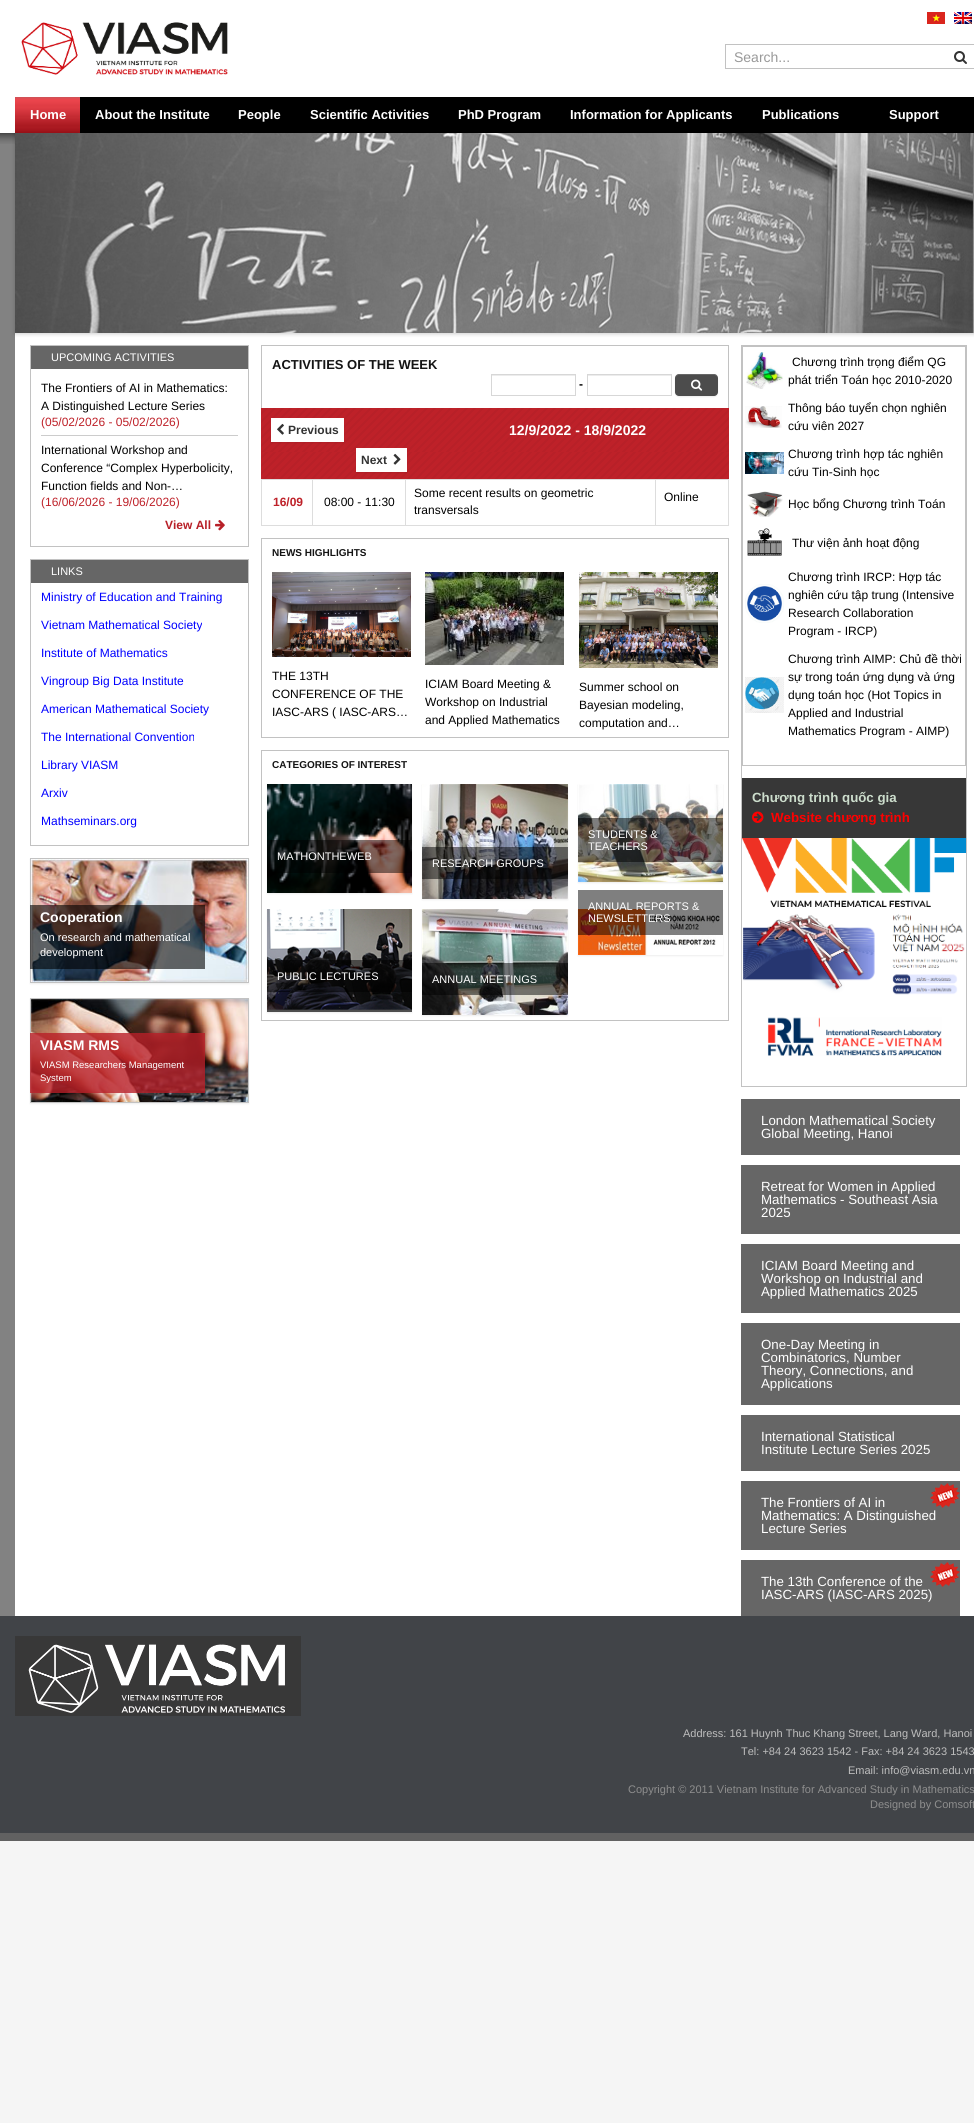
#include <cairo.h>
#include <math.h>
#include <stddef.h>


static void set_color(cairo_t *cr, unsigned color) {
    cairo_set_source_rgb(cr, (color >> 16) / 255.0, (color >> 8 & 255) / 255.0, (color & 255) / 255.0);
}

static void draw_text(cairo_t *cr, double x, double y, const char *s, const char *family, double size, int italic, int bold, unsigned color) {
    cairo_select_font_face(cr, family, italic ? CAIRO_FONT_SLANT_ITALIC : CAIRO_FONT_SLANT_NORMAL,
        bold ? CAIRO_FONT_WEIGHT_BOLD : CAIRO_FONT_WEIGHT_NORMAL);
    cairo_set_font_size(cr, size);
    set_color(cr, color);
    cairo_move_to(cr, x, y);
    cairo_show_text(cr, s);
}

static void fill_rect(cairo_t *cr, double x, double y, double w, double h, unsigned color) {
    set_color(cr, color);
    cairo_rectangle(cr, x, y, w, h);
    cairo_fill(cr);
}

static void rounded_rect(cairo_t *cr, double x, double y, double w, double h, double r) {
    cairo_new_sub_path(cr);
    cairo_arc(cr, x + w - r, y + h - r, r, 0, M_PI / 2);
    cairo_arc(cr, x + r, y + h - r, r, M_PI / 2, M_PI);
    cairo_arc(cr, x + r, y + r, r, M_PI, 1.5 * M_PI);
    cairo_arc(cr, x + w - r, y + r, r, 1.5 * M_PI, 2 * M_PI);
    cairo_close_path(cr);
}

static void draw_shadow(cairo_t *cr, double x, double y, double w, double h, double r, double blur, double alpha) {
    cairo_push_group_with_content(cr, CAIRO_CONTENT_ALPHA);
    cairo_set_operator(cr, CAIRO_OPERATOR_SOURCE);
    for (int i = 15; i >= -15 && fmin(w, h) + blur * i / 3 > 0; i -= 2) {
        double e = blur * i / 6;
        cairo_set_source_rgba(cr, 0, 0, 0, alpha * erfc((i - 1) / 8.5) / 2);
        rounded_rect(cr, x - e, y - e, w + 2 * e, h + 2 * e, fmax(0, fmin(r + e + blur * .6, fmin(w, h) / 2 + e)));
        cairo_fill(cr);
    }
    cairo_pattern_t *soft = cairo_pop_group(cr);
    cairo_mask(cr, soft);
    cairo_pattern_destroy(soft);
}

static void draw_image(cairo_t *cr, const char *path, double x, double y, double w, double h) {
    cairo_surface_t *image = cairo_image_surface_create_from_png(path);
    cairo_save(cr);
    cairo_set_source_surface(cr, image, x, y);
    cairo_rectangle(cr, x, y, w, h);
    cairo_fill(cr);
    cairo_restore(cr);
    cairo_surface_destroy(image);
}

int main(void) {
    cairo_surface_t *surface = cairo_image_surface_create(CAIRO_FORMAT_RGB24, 974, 2123);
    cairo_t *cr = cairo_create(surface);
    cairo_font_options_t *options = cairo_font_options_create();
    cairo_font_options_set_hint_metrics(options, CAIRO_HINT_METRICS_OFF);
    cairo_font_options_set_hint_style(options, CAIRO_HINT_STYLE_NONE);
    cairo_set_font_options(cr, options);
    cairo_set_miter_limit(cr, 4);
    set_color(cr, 0xF5F5F5);
    cairo_paint(cr);
    fill_rect(cr, 0, 0, 974, 133, 0xFFFFFF);
    draw_image(cr, "assets/img1.png", 21, 22, 207, 53);
    draw_image(cr, "assets/img2.png", 927, 12, 18, 12);
    draw_image(cr, "assets/img3.png", 954, 12, 18, 12);
    cairo_rectangle(cr, 946.5, 44.5, 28, 24);
    set_color(cr, 0xC2C2C2);
    cairo_set_line_width(cr, 1);
    cairo_stroke(cr);
    fill_rect(cr, 946, 45, 1, 23, 0xFFFFFF);
    fill_rect(cr, 725, 44, 222, 1, 0xC2C2C2);
    fill_rect(cr, 725, 68, 222, 1, 0xC2C2C2);
    fill_rect(cr, 725, 44, 1, 25, 0xC2C2C2);
    draw_text(cr, 734, 62, "Search...", "Liberation Sans", 14, 0, 0, 0x999999);
    draw_image(cr, "assets/img4.png", 954, 51, 13, 13);
    draw_image(cr, "assets/img5.png", 15, 97, 65, 36);
    draw_text(cr, 30, 119, "Home", "Liberation Sans", 13, 0, 1, 0xFFFFFF);
    fill_rect(cr, 80, 97, 894, 36, 0x000000);
    draw_text(cr, 95, 119, "About the Institute", "Liberation Sans", 13, 0, 1, 0xFFFFFF);
    draw_text(cr, 238, 119, "People", "Liberation Sans", 13, 0, 1, 0xFFFFFF);
    draw_text(cr, 310, 119, "Scientific Activities", "Liberation Sans", 13, 0, 1, 0xFFFFFF);
    draw_text(cr, 458, 119, "PhD Program", "Liberation Sans", 13, 0, 1, 0xFFFFFF);
    draw_text(cr, 570, 119, "Information for Applicants", "Liberation Sans", 13, 0, 1, 0xFFFFFF);
    draw_text(cr, 762, 119, "Publications", "Liberation Sans", 13, 0, 1, 0xFFFFFF);
    draw_text(cr, 889, 119, "Support", "Liberation Sans", 13, 0, 1, 0xFFFFFF);
    fill_rect(cr, 0, 144, 15, 1472, 0x828282);
    draw_image(cr, "assets/img6.png", 0, 133, 15, 11);
    fill_rect(cr, 15, 333, 959, 1283, 0xFFFFFF);
    set_color(cr, 0x000000);
    draw_shadow(cr, 15, 134, 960, 200, 0, 2, 0.2);
    draw_image(cr, "assets/img7.png", 15, 133, 959, 200);
    cairo_rectangle(cr, 30.5, 345.5, 218, 201);
    set_color(cr, 0xC2C2C2);
    cairo_stroke(cr);
    fill_rect(cr, 31, 346, 217, 23, 0x666666);
    draw_text(cr, 51, 361, "UPCOMING ACTIVITIES", "Liberation Sans", 11, 0, 0, 0xFFFFFF);
    fill_rect(cr, 41, 435, 197, 1, 0xCCCCCC);
    draw_text(cr, 41, 392, "The Frontiers of AI in Mathematics:", "Liberation Sans", 12, 0, 0, 0x000000);
    draw_text(cr, 41, 410, "A Distinguished Lecture Series", "Liberation Sans", 12, 0, 0, 0x000000);
    draw_text(cr, 41, 426, "(05/02/2026 - 05/02/2026)", "Liberation Sans", 12, 0, 0, 0xBE2129);
    draw_text(cr, 41, 454, "International Workshop and", "Liberation Sans", 12, 0, 0, 0x000000);
    draw_text(cr, 41, 472, "Conference “Complex Hyperbolicity,", "Liberation Sans", 12, 0, 0, 0x000000);
    draw_text(cr, 41, 490, "Function fields and Non-…", "Liberation Sans", 12, 0, 0, 0x000000);
    draw_text(cr, 41, 506, "(16/06/2026 - 19/06/2026)", "Liberation Sans", 12, 0, 0, 0xBE2129);
    draw_text(cr, 165, 529, "View All", "Liberation Sans", 12, 0, 1, 0xB82028);
    draw_image(cr, "assets/img8.png", 215, 520, 10, 11);
    cairo_rectangle(cr, 30.5, 559.5, 218, 286);
    set_color(cr, 0xC2C2C2);
    cairo_stroke(cr);
    fill_rect(cr, 31, 560, 217, 23, 0x666666);
    draw_text(cr, 51, 575, "LINKS", "Liberation Sans", 11, 0, 0, 0xFFFFFF);
    draw_text(cr, 41, 601, "Ministry of Education and Training", "Liberation Sans", 12, 0, 0, 0x0000FF);
    draw_text(cr, 41, 629, "Vietnam Mathematical Society", "Liberation Sans", 12, 0, 0, 0x0000FF);
    draw_text(cr, 41, 657, "Institute of Mathematics", "Liberation Sans", 12, 0, 0, 0x0000FF);
    draw_text(cr, 41, 685, "Vingroup Big Data Institute", "Liberation Sans", 12, 0, 0, 0x0000FF);
    draw_text(cr, 41, 713, "American Mathematical Society", "Liberation Sans", 12, 0, 0, 0x0000FF);
    draw_text(cr, 41, 741, "The International Convention", "Liberation Sans", 12, 0, 0, 0x0000FF);
    draw_text(cr, 41, 769, "Library VIASM", "Liberation Sans", 12, 0, 0, 0x0000FF);
    draw_text(cr, 41, 797, "Arxiv", "Liberation Sans", 12, 0, 0, 0x0000FF);
    draw_text(cr, 41, 825, "Mathseminars.org", "Liberation Sans", 12, 0, 0, 0x0000FF);
    set_color(cr, 0x000000);
    draw_shadow(cr, 30, 859, 219, 125, 0, 1, 0.07);
    cairo_rectangle(cr, 30.5, 858.5, 218, 124);
    set_color(cr, 0xC2C2C2);
    cairo_stroke(cr);
    draw_image(cr, "assets/img9.png", 31, 859, 217, 123);
    cairo_set_source_rgba(cr, 0, 0, 0, 0.6);
    cairo_rectangle(cr, 30, 905, 175, 64);
    cairo_fill(cr);
    draw_text(cr, 40, 922, "Cooperation", "Liberation Sans", 14, 0, 1, 0xFFFFFF);
    draw_text(cr, 40, 941, "On research and mathematical", "Liberation Sans", 11, 0, 0, 0xFFFFFF);
    draw_text(cr, 40, 956, "development", "Liberation Sans", 11, 0, 0, 0xFFFFFF);
    set_color(cr, 0x000000);
    draw_shadow(cr, 30, 999, 219, 105, 0, 1, 0.07);
    cairo_rectangle(cr, 30.5, 998.5, 218, 104);
    set_color(cr, 0xC2C2C2);
    cairo_stroke(cr);
    draw_image(cr, "assets/img10.png", 31, 999, 217, 103);
    cairo_set_source_rgba(cr, 0.722, 0.125, 0.157, 0.8);
    cairo_rectangle(cr, 30, 1033, 175, 60);
    cairo_fill(cr);
    draw_text(cr, 40, 1050, "VIASM RMS", "Liberation Sans", 14, 0, 1, 0xFFFFFF);
    draw_text(cr, 40, 1068, "VIASM Researchers Management", "Liberation Sans", 9.5, 0, 0, 0xFFFFFF);
    draw_text(cr, 40, 1081, "System", "Liberation Sans", 9.5, 0, 0, 0xFFFFFF);
    fill_rect(cr, 261, 345, 468, 1, 0xC2C2C2);
    fill_rect(cr, 728, 345, 1, 63, 0xC2C2C2);
    fill_rect(cr, 261, 345, 1, 63, 0xC2C2C2);
    draw_text(cr, 272, 369, "ACTIVITIES OF THE WEEK", "Liberation Sans", 13, 0, 1, 0x141414);
    fill_rect(cr, 492, 375, 83, 1, 0xECECEC);
    cairo_rectangle(cr, 491.5, 374.5, 84, 21);
    set_color(cr, 0xD7D7D7);
    cairo_stroke(cr);
    draw_text(cr, 579, 388, "-", "Liberation Sans", 12, 0, 1, 0x000000);
    fill_rect(cr, 588, 375, 83, 1, 0xECECEC);
    cairo_rectangle(cr, 587.5, 374.5, 84, 21);
    set_color(cr, 0xD7D7D7);
    cairo_stroke(cr);
    set_color(cr, 0x000000);
    draw_shadow(cr, 675, 375, 43, 22, 4, 0.5, 0.07);
    set_color(cr, 0x4C4C4C);
    rounded_rect(cr, 675, 374, 43, 22, 4);
    cairo_fill(cr);
    cairo_set_source_rgba(cr, 1, 1, 1, 0.15);
    cairo_new_path(cr);
    cairo_move_to(cr, 679, 375);
    cairo_line_to(cr, 714, 375);
    cairo_curve_to(cr, 716, 375, 718, 377, 718, 379);
    cairo_curve_to(cr, 718, 373, 713, 374, 708, 374);
    cairo_line_to(cr, 685, 374);
    cairo_curve_to(cr, 680, 374, 675, 373, 675, 379);
    cairo_curve_to(cr, 675, 377, 677, 375, 679, 375);
    cairo_close_path(cr);
    cairo_fill(cr);
    draw_image(cr, "assets/img11.png", 691, 379, 12, 12);
    draw_image(cr, "assets/img12.png", 261, 408, 468, 71);
    set_color(cr, 0x000000);
    draw_shadow(cr, 271, 419, 73, 24, 0, 0.5, 0.07);
    fill_rect(cr, 271, 418, 73, 24, 0xFFFFFF);
    draw_image(cr, "assets/img13.png", 277, 423, 7, 12);
    draw_text(cr, 288, 434, "Previous", "Liberation Sans", 12, 0, 1, 0x333333);
    draw_text(cr, 509, 435, "12/9/2022 - 18/9/2022", "Liberation Sans", 14, 0, 1, 0xFFFFFF);
    set_color(cr, 0x000000);
    draw_shadow(cr, 356, 449, 51, 24, 0, 0.5, 0.07);
    fill_rect(cr, 356, 448, 51, 24, 0xFFFFFF);
    draw_text(cr, 361, 464, "Next", "Liberation Sans", 12, 0, 1, 0x333333);
    draw_image(cr, "assets/img14.png", 393, 453, 8, 12);
    fill_rect(cr, 655, 479, 74, 1, 0xDDDDDD);
    fill_rect(cr, 728, 479, 1, 47, 0xDDDDDD);
    fill_rect(cr, 655, 525, 74, 1, 0xDDDDDD);
    fill_rect(cr, 655, 479, 1, 47, 0xDDDDDD);
    fill_rect(cr, 405, 479, 251, 1, 0xDDDDDD);
    fill_rect(cr, 405, 525, 251, 1, 0xDDDDDD);
    fill_rect(cr, 405, 479, 1, 47, 0xDDDDDD);
    fill_rect(cr, 312, 479, 94, 1, 0xDDDDDD);
    fill_rect(cr, 312, 525, 94, 1, 0xDDDDDD);
    fill_rect(cr, 312, 479, 1, 47, 0xDDDDDD);
    fill_rect(cr, 261, 479, 52, 1, 0xDDDDDD);
    fill_rect(cr, 261, 525, 52, 1, 0xDDDDDD);
    fill_rect(cr, 261, 479, 1, 47, 0xDDDDDD);
    draw_text(cr, 273, 506, "16/09", "Liberation Sans", 12, 0, 1, 0xBE2129);
    draw_text(cr, 324, 506, "08:00 - 11:30", "Liberation Sans", 12, 0, 0, 0x000000);
    draw_text(cr, 414, 497, "Some recent results on geometric", "Liberation Sans", 12, 0, 0, 0x000000);
    draw_text(cr, 414, 514, "transversals", "Liberation Sans", 12, 0, 0, 0x000000);
    draw_text(cr, 664, 501, "Online", "Liberation Sans", 12, 0, 0, 0x000000);
    cairo_rectangle(cr, 261.5, 538.5, 467, 199);
    set_color(cr, 0xC2C2C2);
    cairo_stroke(cr);
    draw_text(cr, 272, 556, "NEWS HIGHLIGHTS", "Liberation Sans", 10, 0, 1, 0x141414);
    draw_image(cr, "assets/img15.png", 272, 572, 139, 85);
    draw_text(cr, 272, 680, "THE 13TH", "Liberation Sans", 12, 0, 0, 0x000000);
    draw_text(cr, 272, 698, "CONFERENCE OF THE", "Liberation Sans", 12, 0, 0, 0x000000);
    draw_text(cr, 272, 716, "IASC-ARS ( IASC-ARS…", "Liberation Sans", 12, 0, 0, 0x000000);
    draw_image(cr, "assets/img16.png", 425, 572, 139, 93);
    draw_text(cr, 425, 688, "ICIAM Board Meeting &", "Liberation Sans", 12, 0, 0, 0x000000);
    draw_text(cr, 425, 706, "Workshop on Industrial", "Liberation Sans", 12, 0, 0, 0x000000);
    draw_text(cr, 425, 724, "and Applied Mathematics", "Liberation Sans", 12, 0, 0, 0x000000);
    draw_image(cr, "assets/img17.png", 579, 572, 139, 96);
    draw_text(cr, 579, 691, "Summer school on", "Liberation Sans", 12, 0, 0, 0x000000);
    draw_text(cr, 579, 709, "Bayesian modeling,", "Liberation Sans", 12, 0, 0, 0x000000);
    draw_text(cr, 579, 727, "computation and…", "Liberation Sans", 12, 0, 0, 0x000000);
    cairo_rectangle(cr, 261.5, 750.5, 467, 270);
    set_color(cr, 0xC2C2C2);
    cairo_stroke(cr);
    draw_text(cr, 272, 768, "CATEGORIES OF INTEREST", "Liberation Sans", 10, 0, 1, 0x141414);
    set_color(cr, 0x000000);
    draw_shadow(cr, 578, 785, 145, 98, 0, 1, 0.07);
    draw_image(cr, "assets/img18.png", 578, 784, 145, 98);
    cairo_set_source_rgba(cr, 0, 0, 0, 0.5);
    cairo_rectangle(cr, 578, 818, 145, 44);
    cairo_fill(cr);
    draw_text(cr, 588, 838, "STUDENTS &", "Liberation Sans", 11, 0, 0, 0xFFFFFF);
    draw_text(cr, 588, 850, "TEACHERS", "Liberation Sans", 11, 0, 0, 0xFFFFFF);
    set_color(cr, 0x000000);
    draw_shadow(cr, 267, 785, 145, 109, 0, 1, 0.07);
    draw_image(cr, "assets/img19.png", 267, 784, 145, 109);
    cairo_set_source_rgba(cr, 0, 0, 0, 0.5);
    cairo_rectangle(cr, 267, 840, 145, 33);
    cairo_fill(cr);
    draw_text(cr, 277, 860, "MATHONTHEWEB", "Liberation Sans", 11, 0, 0, 0xFFFFFF);
    set_color(cr, 0x000000);
    draw_shadow(cr, 422, 785, 146, 115, 0, 1, 0.07);
    draw_image(cr, "assets/img20.png", 422, 784, 146, 115);
    cairo_set_source_rgba(cr, 0, 0, 0, 0.5);
    cairo_rectangle(cr, 422, 847, 146, 32);
    cairo_fill(cr);
    draw_text(cr, 432, 867, "RESEARCH GROUPS", "Liberation Sans", 11, 0, 0, 0xFFFFFF);
    cairo_save(cr);
    cairo_set_fill_rule(cr, CAIRO_FILL_RULE_EVEN_ODD);
    cairo_new_path(cr);
    cairo_move_to(cr, 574, 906);
    cairo_line_to(cr, 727, 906);
    cairo_line_to(cr, 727, 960);
    cairo_line_to(cr, 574, 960);
    cairo_close_path(cr);
    cairo_move_to(cr, 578, 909);
    cairo_line_to(cr, 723, 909);
    cairo_line_to(cr, 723, 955);
    cairo_line_to(cr, 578, 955);
    cairo_close_path(cr);
    cairo_clip(cr);
    set_color(cr, 0x000000);
    draw_shadow(cr, 578, 910, 145, 46, 0, 1, 0.07);
    cairo_restore(cr);
    draw_image(cr, "assets/img21.png", 578, 909, 142, 46);
    cairo_set_source_rgba(cr, 0, 0, 0, 0.5);
    cairo_rectangle(cr, 578, 890, 145, 45);
    cairo_fill(cr);
    draw_text(cr, 588, 910, "ANNUAL REPORTS &", "Liberation Sans", 11, 0, 0, 0xFFFFFF);
    draw_text(cr, 588, 922, "NEWSLETTERS", "Liberation Sans", 11, 0, 0, 0xFFFFFF);
    set_color(cr, 0x000000);
    draw_shadow(cr, 267, 910, 145, 103, 0, 1, 0.07);
    draw_image(cr, "assets/img22.png", 267, 909, 145, 103);
    cairo_set_source_rgba(cr, 0, 0, 0, 0.5);
    cairo_rectangle(cr, 267, 960, 145, 32);
    cairo_fill(cr);
    draw_text(cr, 277, 980, "PUBLIC LECTURES", "Liberation Sans", 11, 0, 0, 0xFFFFFF);
    set_color(cr, 0x000000);
    draw_shadow(cr, 422, 910, 146, 106, 0, 1, 0.07);
    draw_image(cr, "assets/img23.png", 422, 909, 146, 106);
    cairo_set_source_rgba(cr, 0, 0, 0, 0.5);
    cairo_rectangle(cr, 422, 963, 146, 32);
    cairo_fill(cr);
    draw_text(cr, 432, 983, "ANNUAL MEETINGS", "Liberation Sans", 11, 0, 0, 0xFFFFFF);
    cairo_rectangle(cr, 741.5, 345.5, 225, 741);
    set_color(cr, 0xC2C2C2);
    cairo_stroke(cr);
    cairo_rectangle(cr, 742.5, 346.5, 223, 419);
    cairo_stroke(cr);
    draw_image(cr, "assets/img24.png", 746, 352, 37, 37);
    draw_text(cr, 792, 366, "Chương trình trọng điểm QG", "Liberation Sans", 12, 0, 0, 0x000000);
    draw_text(cr, 788, 384, "phát triển Toán học 2010-2020", "Liberation Sans", 12, 0, 0, 0x000000);
    draw_image(cr, "assets/img25.png", 745, 406, 37, 22);
    draw_text(cr, 788, 412, "Thông báo tuyển chọn nghiên", "Liberation Sans", 12, 0, 0, 0x000000);
    draw_text(cr, 788, 430, "cứu viên 2027", "Liberation Sans", 12, 0, 0, 0x000000);
    draw_image(cr, "assets/img26.png", 745, 452, 39, 22);
    draw_text(cr, 788, 458, "Chương trình hợp tác nghiên", "Liberation Sans", 12, 0, 0, 0x000000);
    draw_text(cr, 788, 476, "cứu Tin-Sinh học", "Liberation Sans", 12, 0, 0, 0x000000);
    draw_image(cr, "assets/img27.png", 747, 491, 36, 26);
    draw_text(cr, 788, 508, "Học bổng Chương trình Toán", "Liberation Sans", 12, 0, 0, 0x000000);
    draw_image(cr, "assets/img28.png", 747, 528, 35, 28);
    draw_text(cr, 792, 547, "Thư viện ảnh hoạt động", "Liberation Sans", 12, 0, 0, 0x000000);
    draw_image(cr, "assets/img29.png", 745, 584, 39, 39);
    draw_text(cr, 788, 581, "Chương trình IRCP: Hợp tác", "Liberation Sans", 12, 0, 0, 0x000000);
    draw_text(cr, 788, 599, "nghiên cứu tập trung (Intensive", "Liberation Sans", 12, 0, 0, 0x000000);
    draw_text(cr, 788, 617, "Research Collaboration", "Liberation Sans", 12, 0, 0, 0x000000);
    draw_text(cr, 788, 635, "Program - IRCP)", "Liberation Sans", 12, 0, 0, 0x000000);
    draw_image(cr, "assets/img30.png", 745, 677, 39, 36);
    draw_text(cr, 788, 663, "Chương trình AIMP: Chủ đề thời", "Liberation Sans", 12, 0, 0, 0x000000);
    draw_text(cr, 788, 681, "sự trong toán ứng dụng và ứng", "Liberation Sans", 12, 0, 0, 0x000000);
    draw_text(cr, 788, 699, "dụng toán học (Hot Topics in", "Liberation Sans", 12, 0, 0, 0x000000);
    draw_text(cr, 788, 717, "Applied and Industrial", "Liberation Sans", 12, 0, 0, 0x000000);
    draw_text(cr, 788, 735, "Mathematics Program - AIMP)", "Liberation Sans", 12, 0, 0, 0x000000);
    fill_rect(cr, 742, 778, 224, 60, 0x373737);
    draw_text(cr, 752, 802, "Chương trình quốc gia", "Liberation Sans", 13.3, 0, 1, 0xCCDDCC);
    draw_image(cr, "assets/img31.png", 752, 811, 12, 12);
    draw_text(cr, 771, 822, "Website chương trình", "Liberation Sans", 13.3, 0, 1, 0xFF0000);
    draw_image(cr, "assets/img32.png", 742, 838, 224, 69);
    draw_image(cr, "assets/img33.png", 743, 914, 222, 81);
    draw_image(cr, "assets/img34.png", 767, 1017, 175, 39);
    fill_rect(cr, 741, 1099, 219, 56, 0x666666);
    draw_text(cr, 761, 1125, "London Mathematical Society", "Liberation Sans", 13.3, 0, 0, 0xFFFFFF);
    draw_text(cr, 761, 1138, "Global Meeting, Hanoi", "Liberation Sans", 13.3, 0, 0, 0xFFFFFF);
    fill_rect(cr, 741, 1165, 219, 69, 0x666666);
    draw_text(cr, 761, 1191, "Retreat for Women in Applied", "Liberation Sans", 13.3, 0, 0, 0xFFFFFF);
    draw_text(cr, 761, 1204, "Mathematics - Southeast Asia", "Liberation Sans", 13.3, 0, 0, 0xFFFFFF);
    draw_text(cr, 761, 1217, "2025", "Liberation Sans", 13.3, 0, 0, 0xFFFFFF);
    fill_rect(cr, 741, 1244, 219, 69, 0x666666);
    draw_text(cr, 761, 1270, "ICIAM Board Meeting and", "Liberation Sans", 13.3, 0, 0, 0xFFFFFF);
    draw_text(cr, 761, 1283, "Workshop on Industrial and", "Liberation Sans", 13.3, 0, 0, 0xFFFFFF);
    draw_text(cr, 761, 1296, "Applied Mathematics 2025", "Liberation Sans", 13.3, 0, 0, 0xFFFFFF);
    fill_rect(cr, 741, 1323, 219, 82, 0x666666);
    draw_text(cr, 761, 1349, "One-Day Meeting in", "Liberation Sans", 13.3, 0, 0, 0xFFFFFF);
    draw_text(cr, 761, 1362, "Combinatorics, Number", "Liberation Sans", 13.3, 0, 0, 0xFFFFFF);
    draw_text(cr, 761, 1375, "Theory, Connections, and", "Liberation Sans", 13.3, 0, 0, 0xFFFFFF);
    draw_text(cr, 761, 1388, "Applications", "Liberation Sans", 13.3, 0, 0, 0xFFFFFF);
    fill_rect(cr, 741, 1415, 219, 56, 0x666666);
    draw_text(cr, 761, 1441, "International Statistical", "Liberation Sans", 13.3, 0, 0, 0xFFFFFF);
    draw_text(cr, 761, 1454, "Institute Lecture Series 2025", "Liberation Sans", 13.3, 0, 0, 0xFFFFFF);
    fill_rect(cr, 741, 1481, 219, 69, 0x666666);
    draw_text(cr, 761, 1507, "The Frontiers of AI in", "Liberation Sans", 13.3, 0, 0, 0xFFFFFF);
    draw_image(cr, "assets/img35.png", 930, 1483, 30, 25);
    draw_text(cr, 761, 1520, "Mathematics: A Distinguished", "Liberation Sans", 13.3, 0, 0, 0xFFFFFF);
    draw_text(cr, 761, 1533, "Lecture Series", "Liberation Sans", 13.3, 0, 0, 0xFFFFFF);
    fill_rect(cr, 741, 1560, 219, 56, 0x666666);
    draw_text(cr, 761, 1586, "The 13th Conference of the", "Liberation Sans", 13.3, 0, 0, 0xFFFFFF);
    draw_image(cr, "assets/img35.png", 930, 1562, 30, 25);
    draw_text(cr, 761, 1599, "IASC-ARS (IASC-ARS 2025)", "Liberation Sans", 13.3, 0, 0, 0xFFFFFF);
    fill_rect(cr, 0, 1616, 974, 217, 0x414448);
    fill_rect(cr, 0, 1833, 974, 8, 0x616161);
    draw_image(cr, "assets/img36.png", 15, 1636, 286, 80);
    draw_text(cr, 683, 1737, "Address: 161 Huynh Thuc Khang Street, Lang Ward, Hanoi", "Liberation Sans", 11, 0, 0, 0xBEBEBE);
    draw_text(cr, 741, 1755, "Tel: +84 24 3623 1542 - Fax: +84 24 3623 1543", "Liberation Sans", 11, 0, 0, 0xBEBEBE);
    draw_text(cr, 848, 1774, "Email: info@viasm.edu.vn", "Liberation Sans", 11, 0, 0, 0xBEBEBE);
    draw_text(cr, 628, 1793, "Copyright © 2011 Vietnam Institute for Advanced Study in Mathematics", "Liberation Sans", 11, 0, 0, 0x8E8E8E);
    draw_text(cr, 870, 1808, "Designed by Comsoft", "Liberation Sans", 11, 0, 0, 0x8E8E8E);
    cairo_surface_write_to_png(surface, "output.png");
    cairo_font_options_destroy(options);
    cairo_destroy(cr);
    cairo_surface_destroy(surface);
    return 0;
}
